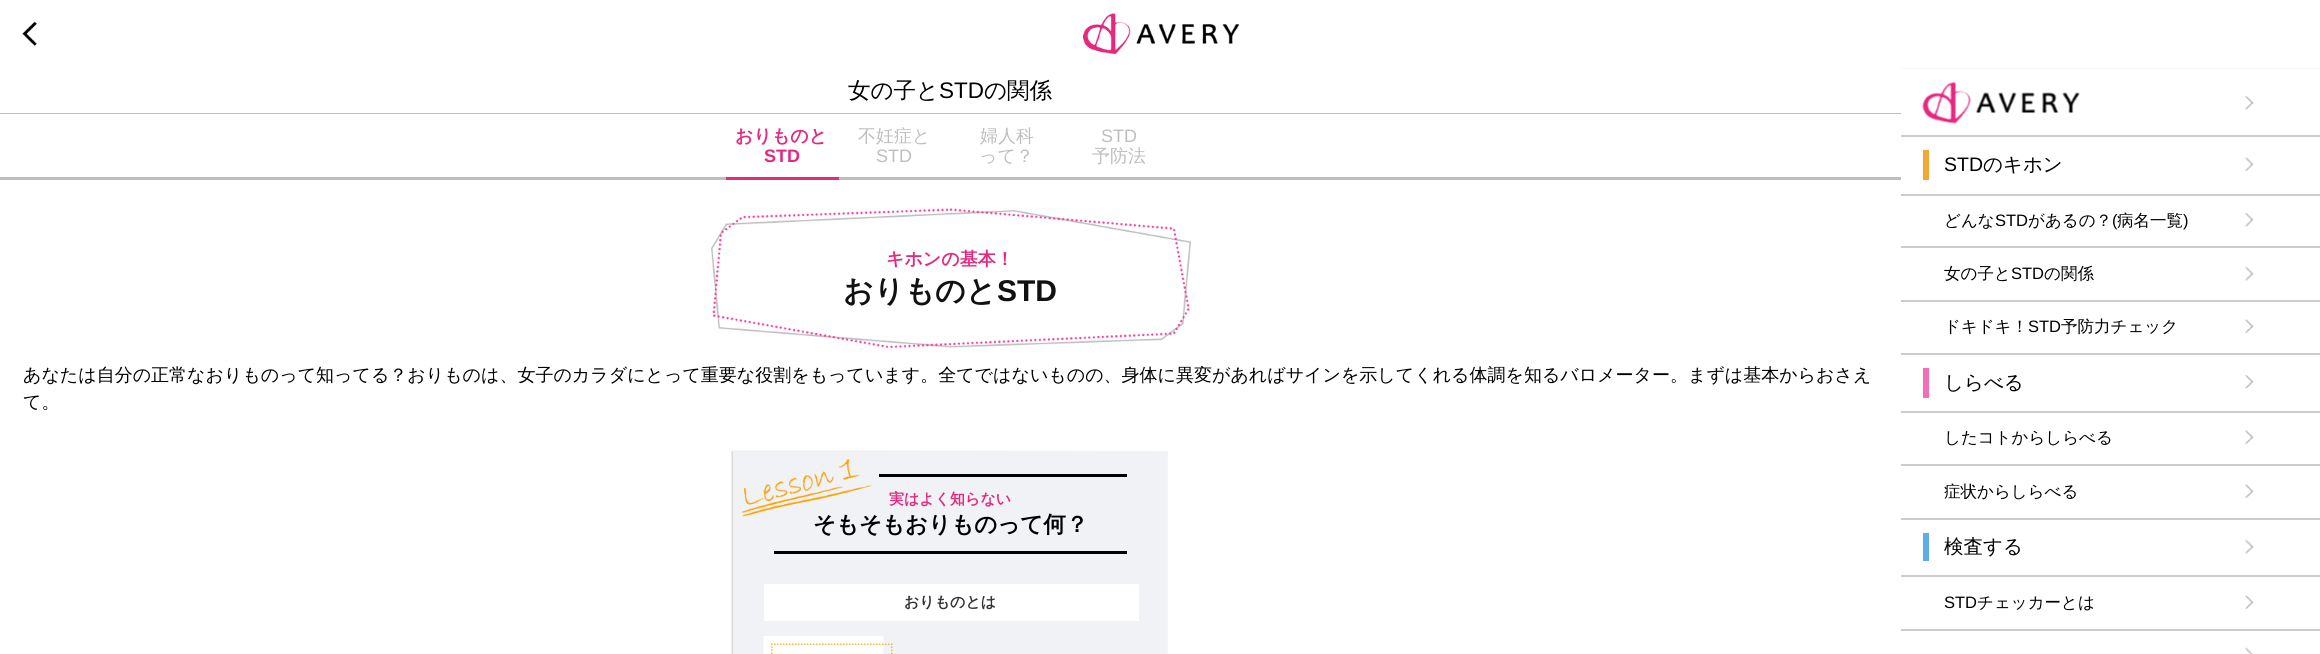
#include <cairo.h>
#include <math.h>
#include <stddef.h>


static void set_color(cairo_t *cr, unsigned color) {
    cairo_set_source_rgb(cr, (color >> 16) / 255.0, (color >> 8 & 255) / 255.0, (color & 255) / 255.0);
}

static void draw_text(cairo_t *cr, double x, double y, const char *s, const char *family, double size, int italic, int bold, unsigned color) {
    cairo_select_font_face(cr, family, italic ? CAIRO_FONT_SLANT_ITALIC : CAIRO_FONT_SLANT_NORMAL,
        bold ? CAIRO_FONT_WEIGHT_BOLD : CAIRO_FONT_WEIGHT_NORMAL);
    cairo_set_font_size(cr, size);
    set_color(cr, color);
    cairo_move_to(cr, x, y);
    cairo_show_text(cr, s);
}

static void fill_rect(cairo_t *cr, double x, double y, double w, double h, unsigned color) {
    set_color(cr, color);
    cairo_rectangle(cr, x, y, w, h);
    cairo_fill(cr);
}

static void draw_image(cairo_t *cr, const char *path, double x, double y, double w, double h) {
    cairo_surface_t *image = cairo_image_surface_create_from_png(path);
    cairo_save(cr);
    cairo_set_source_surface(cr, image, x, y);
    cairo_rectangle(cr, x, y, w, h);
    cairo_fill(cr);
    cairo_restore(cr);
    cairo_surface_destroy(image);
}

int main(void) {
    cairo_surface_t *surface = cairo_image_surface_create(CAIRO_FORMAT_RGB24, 2320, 654);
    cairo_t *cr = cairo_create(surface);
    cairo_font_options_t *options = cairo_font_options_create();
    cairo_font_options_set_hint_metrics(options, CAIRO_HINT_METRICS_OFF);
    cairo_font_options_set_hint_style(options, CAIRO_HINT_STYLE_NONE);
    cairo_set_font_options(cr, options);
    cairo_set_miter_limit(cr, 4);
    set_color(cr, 0xF8F8F8);
    cairo_paint(cr);
    fill_rect(cr, 0, 68, 1901, 586, 0xFFFFFF);
    fill_rect(cr, 0, 0, 2320, 68, 0xFFFFFF);
    draw_image(cr, "assets/img1.png", 22, 21, 15, 25);
    draw_image(cr, "assets/img2.png", 1083, 13, 156, 41);
    fill_rect(cr, 0, 113, 1901, 1, 0xBEBEBE);
    draw_text(cr, 848, 98, "女の子と", "WenQuanYi Zen Hei Medium", 22.5, 0, 0, 0x000000);
    draw_text(cr, 939, 98, "STD", "Liberation Sans", 22.5, 0, 0, 0x000000);
    draw_text(cr, 984, 98, "の関係", "WenQuanYi Zen Hei Medium", 22.5, 0, 0, 0x000000);
    fill_rect(cr, 0, 177, 1901, 3, 0xBEBEBE);
    fill_rect(cr, 726, 177, 113, 3, 0xE6287E);
    draw_text(cr, 735, 142, "おりものと", "WenQuanYi Zen Hei", 18, 0, 1, 0xE5287E);
    draw_text(cr, 764, 162, "STD", "Liberation Sans", 18, 0, 1, 0xE5287E);
    draw_text(cr, 858, 142, "不妊症と", "WenQuanYi Zen Hei Medium", 18, 0, 0, 0xBEBEBE);
    draw_text(cr, 876, 162, "STD", "Liberation Sans", 18, 0, 0, 0xBEBEBE);
    draw_text(cr, 980, 142, "婦人科", "WenQuanYi Zen Hei Medium", 18, 0, 0, 0xBEBEBE);
    draw_text(cr, 979, 162, "って？", "WenQuanYi Zen Hei Medium", 18, 0, 0, 0xBEBEBE);
    draw_text(cr, 1101, 142, "STD", "Liberation Sans", 18, 0, 0, 0xBEBEBE);
    draw_text(cr, 1092, 162, "予防法", "WenQuanYi Zen Hei Medium", 18, 0, 0, 0xBEBEBE);
    draw_image(cr, "assets/img3.png", 711, 208, 480, 140);
    draw_text(cr, 886, 265, "キホンの基本！", "WenQuanYi Zen Hei", 18, 0, 1, 0xE5287E);
    draw_text(cr, 843, 301, "おりものと", "WenQuanYi Zen Hei", 30, 0, 1, 0x111111);
    draw_text(cr, 997, 301, "STD", "Liberation Sans", 30, 0, 1, 0x111111);
    draw_text(cr, 23, 381, "あなたは自分の正常なおりものって知ってる？おりものは、女子のカラダにとって重要な役割をもっています。全てではないものの、身体に異変があればサインを示してくれる体調を知るバロメーター。まずは基本からおさえ", "WenQuanYi Zen Hei Medium", 18, 0, 0, 0x000000);
    draw_text(cr, 23, 408, "て。", "WenQuanYi Zen Hei Medium", 18, 0, 0, 0x000000);
    draw_image(cr, "assets/img4.png", 731, 450, 437, 204);
    fill_rect(cr, 879, 474, 248, 3, 0x000000);
    fill_rect(cr, 774, 551, 353, 3, 0x000000);
    draw_image(cr, "assets/img5.png", 741, 459, 138, 58);
    draw_text(cr, 889, 504, "実はよく知らない", "WenQuanYi Zen Hei", 15, 0, 1, 0xE5287E);
    draw_text(cr, 813, 532, "そもそもおりものって何？", "WenQuanYi Zen Hei", 22.5, 0, 1, 0x000000);
    fill_rect(cr, 764, 584, 375, 37, 0xFFFFFF);
    draw_text(cr, 904, 607, "おりものとは", "WenQuanYi Zen Hei", 15, 0, 1, 0x333333);
    draw_image(cr, "assets/img6.png", 763, 636, 130, 18);
    fill_rect(cr, 1901, 69, 419, 585, 0xFFFFFF);
    fill_rect(cr, 1901, 135, 419, 2, 0xCCCCCC);
    draw_image(cr, "assets/img7.png", 2245, 96, 9, 14);
    draw_image(cr, "assets/img8.png", 1922, 82, 158, 42);
    fill_rect(cr, 1901, 194, 419, 2, 0xCCCCCC);
    draw_image(cr, "assets/img9.png", 2245, 157, 9, 15);
    fill_rect(cr, 1923, 150, 6, 30, 0xF2A835);
    draw_text(cr, 1944, 171, "STD", "Liberation Sans", 19.5, 0, 0, 0x000000);
    draw_text(cr, 1983, 171, "のキホン", "WenQuanYi Zen Hei Medium", 19.5, 0, 0, 0x000000);
    fill_rect(cr, 1901, 246, 419, 2, 0xCCCCCC);
    draw_image(cr, "assets/img10.png", 2245, 212, 9, 15);
    draw_text(cr, 1944, 226, "どんな", "WenQuanYi Zen Hei Medium", 16.5, 0, 0, 0x000000);
    draw_text(cr, 1995, 226, "STD", "Liberation Sans", 16.5, 0, 0, 0x000000);
    draw_text(cr, 2028, 226, "があるの？", "WenQuanYi Zen Hei Medium", 16.5, 0, 0, 0x000000);
    draw_text(cr, 2112, 226, "(", "Liberation Sans", 16.5, 0, 0, 0x000000);
    draw_text(cr, 2117, 226, "病名一覧", "WenQuanYi Zen Hei Medium", 16.5, 0, 0, 0x000000);
    draw_text(cr, 2183, 226, ")", "Liberation Sans", 16.5, 0, 0, 0x000000);
    fill_rect(cr, 1901, 300, 419, 2, 0xCCCCCC);
    draw_image(cr, "assets/img10.png", 2245, 266, 9, 15);
    draw_text(cr, 1944, 279, "女の子と", "WenQuanYi Zen Hei Medium", 16.5, 0, 0, 0x000000);
    draw_text(cr, 2011, 279, "STD", "Liberation Sans", 16.5, 0, 0, 0x000000);
    draw_text(cr, 2044, 279, "の関係", "WenQuanYi Zen Hei Medium", 16.5, 0, 0, 0x000000);
    fill_rect(cr, 1901, 353, 419, 2, 0xCCCCCC);
    draw_image(cr, "assets/img11.png", 2245, 319, 9, 14);
    draw_text(cr, 1944, 332, "ドキドキ！", "WenQuanYi Zen Hei Medium", 16.5, 0, 0, 0x000000);
    draw_text(cr, 2028, 332, "STD", "Liberation Sans", 16.5, 0, 0, 0x000000);
    draw_text(cr, 2061, 332, "予防力チェック", "WenQuanYi Zen Hei Medium", 16.5, 0, 0, 0x000000);
    fill_rect(cr, 1901, 411, 419, 2, 0xCCCCCC);
    draw_image(cr, "assets/img7.png", 2245, 375, 9, 14);
    fill_rect(cr, 1923, 368, 6, 30, 0xF66CB8);
    draw_text(cr, 1944, 389, "しらべる", "WenQuanYi Zen Hei Medium", 19.5, 0, 0, 0x000000);
    fill_rect(cr, 1901, 464, 419, 2, 0xCCCCCC);
    draw_image(cr, "assets/img11.png", 2245, 430, 9, 14);
    draw_text(cr, 1944, 443, "したコトからしらべる", "WenQuanYi Zen Hei Medium", 16.5, 0, 0, 0x000000);
    fill_rect(cr, 1901, 518, 419, 2, 0xCCCCCC);
    draw_image(cr, "assets/img11.png", 2245, 484, 9, 14);
    draw_text(cr, 1944, 497, "症状からしらべる", "WenQuanYi Zen Hei Medium", 16.5, 0, 0, 0x000000);
    fill_rect(cr, 1901, 575, 419, 2, 0xCCCCCC);
    draw_image(cr, "assets/img10.png", 2245, 539, 9, 15);
    fill_rect(cr, 1923, 533, 6, 28, 0x5DADE8);
    draw_text(cr, 1944, 553, "検査する", "WenQuanYi Zen Hei Medium", 19.5, 0, 0, 0x000000);
    fill_rect(cr, 1901, 629, 419, 2, 0xCCCCCC);
    draw_image(cr, "assets/img11.png", 2245, 595, 9, 14);
    draw_text(cr, 1944, 608, "STD", "Liberation Sans", 16.5, 0, 0, 0x000000);
    draw_text(cr, 1977, 608, "チェッカーとは", "WenQuanYi Zen Hei Medium", 16.5, 0, 0, 0x000000);
    draw_image(cr, "assets/img12.png", 2245, 647, 8, 7);
    cairo_surface_write_to_png(surface, "output.png");
    cairo_font_options_destroy(options);
    cairo_destroy(cr);
    cairo_surface_destroy(surface);
    return 0;
}
